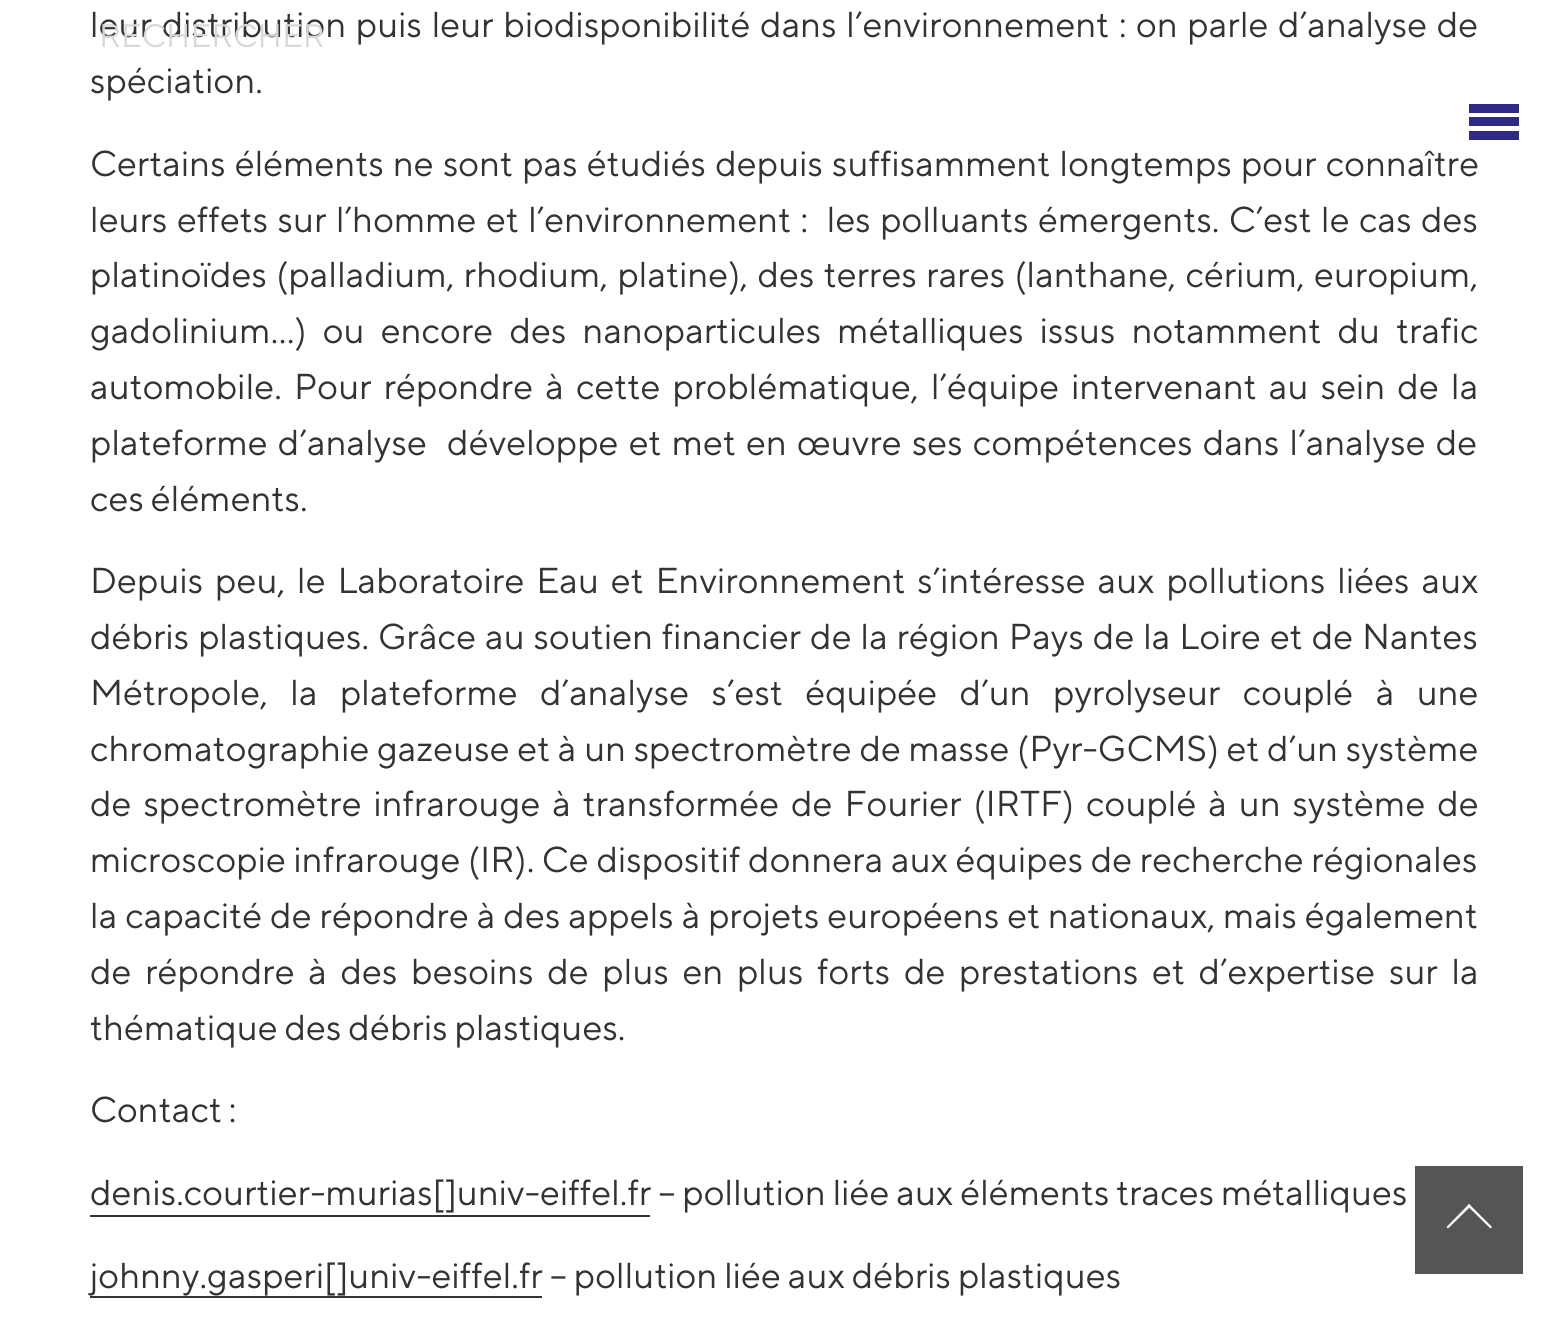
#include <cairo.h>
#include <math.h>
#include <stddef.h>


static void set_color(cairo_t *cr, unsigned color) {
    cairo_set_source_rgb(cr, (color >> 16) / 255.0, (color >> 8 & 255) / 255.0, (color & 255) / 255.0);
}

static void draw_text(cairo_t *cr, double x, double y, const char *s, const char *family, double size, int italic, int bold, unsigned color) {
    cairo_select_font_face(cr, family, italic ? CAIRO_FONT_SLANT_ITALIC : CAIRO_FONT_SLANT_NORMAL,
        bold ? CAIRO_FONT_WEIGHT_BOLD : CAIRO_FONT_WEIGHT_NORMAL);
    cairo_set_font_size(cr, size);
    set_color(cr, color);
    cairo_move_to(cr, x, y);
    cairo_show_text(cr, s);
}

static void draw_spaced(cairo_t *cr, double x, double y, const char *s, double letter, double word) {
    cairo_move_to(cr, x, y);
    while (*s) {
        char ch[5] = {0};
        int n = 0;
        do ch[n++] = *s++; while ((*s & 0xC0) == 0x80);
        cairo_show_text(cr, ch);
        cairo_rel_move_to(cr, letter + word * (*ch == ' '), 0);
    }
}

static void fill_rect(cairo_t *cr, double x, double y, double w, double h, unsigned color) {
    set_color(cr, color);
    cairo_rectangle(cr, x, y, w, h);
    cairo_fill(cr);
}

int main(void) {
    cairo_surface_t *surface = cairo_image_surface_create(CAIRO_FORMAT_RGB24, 1568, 1317);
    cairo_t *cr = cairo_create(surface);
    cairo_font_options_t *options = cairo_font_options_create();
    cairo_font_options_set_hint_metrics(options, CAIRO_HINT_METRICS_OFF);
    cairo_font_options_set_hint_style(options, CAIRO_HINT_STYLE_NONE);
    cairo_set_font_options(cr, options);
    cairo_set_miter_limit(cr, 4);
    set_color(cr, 0xFFFFFF);
    cairo_paint(cr);
    cairo_select_font_face(cr, "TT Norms", CAIRO_FONT_SLANT_NORMAL, CAIRO_FONT_WEIGHT_NORMAL);
    cairo_set_font_size(cr, 36);
    set_color(cr, 0x333333);
    draw_spaced(cr, 90, 37, "leur distribution puis leur biodisponibilité dans l’environnement : on parle d’analyse de", 0, 2.75);
    draw_text(cr, 90, 93, "spéciation.", "TT Norms", 36, 0, 0, 0x333333);
    draw_spaced(cr, 90, 176, "Certains éléments ne sont pas étudiés depuis suffisamment longtemps pour connaître", 0, 2.25);
    draw_spaced(cr, 90, 232, "leurs effets sur l’homme et l’environnement :  les polluants émergents. C’est le cas des", 0, 2.5);
    draw_spaced(cr, 90, 287, "platinoïdes (palladium, rhodium, platine), des terres rares (lanthane, cérium, europium,", 0, 2.5);
    draw_spaced(cr, 90, 343, "gadolinium…) ou encore des nanoparticules métalliques issus notamment du trafic", 0, 9.25);
    draw_spaced(cr, 90, 399, "automobile. Pour répondre à cette problématique, l’équipe intervenant au sein de la", 0, 5.25);
    draw_spaced(cr, 90, 455, "plateforme d’analyse  développe et met en œuvre ses compétences dans l’analyse de", 0, 3.25);
    draw_text(cr, 90, 511, "ces éléments.", "TT Norms", 36, 0, 0, 0x333333);
    draw_spaced(cr, 90, 593, "Depuis peu, le Laboratoire Eau et Environnement s’intéresse aux pollutions liées aux", 0, 5);
    draw_spaced(cr, 90, 649, "débris plastiques. Grâce au soutien financier de la région Pays de la Loire et de Nantes", 0, 2);
    draw_spaced(cr, 90, 705, "Métropole, la plateforme d’analyse s’est équipée d’un pyrolyseur couplé à une", 0, 15.5);
    draw_spaced(cr, 90, 761, "chromatographie gazeuse et à un spectromètre de masse (Pyr-GCMS) et d’un système", 0, 0.75);
    draw_spaced(cr, 90, 816, "de spectromètre infrarouge à transformée de Fourier (IRTF) couplé à un système de", 0, 5);
    draw_spaced(cr, 90, 872, "microscopie infrarouge (IR). Ce dispositif donnera aux équipes de recherche régionales", 0, 0.75);
    draw_spaced(cr, 90, 928, "la capacité de répondre à des appels à projets européens et nationaux, mais également", 0, 1);
    draw_spaced(cr, 90, 984, "de répondre à des besoins de plus en plus forts de prestations et d’expertise sur la", 0, 6.75);
    draw_text(cr, 90, 1040, "thématique des débris plastiques.", "TT Norms", 36, 0, 0, 0x333333);
    draw_text(cr, 90, 1122, "Contact :", "TT Norms", 36, 0, 0, 0x333333);
    draw_text(cr, 90, 1205, "denis.courtier-murias[]univ-eiffel.fr – pollution liée aux éléments traces métalliques", "TT Norms", 36, 0, 0, 0x333333);
    fill_rect(cr, 90, 1215, 560, 2, 0x333333);
    draw_text(cr, 90, 1288, "johnny.gasperi[]univ-eiffel.fr – pollution liée aux débris plastiques", "TT Norms", 36, 0, 0, 0x333333);
    fill_rect(cr, 90, 1296, 452, 2, 0x333333);
    draw_text(cr, 99, 47, "RECHERCHER", "TT Norms", 32.5, 0, 0, 0xD8D8D8);
    fill_rect(cr, 1469, 117, 50, 9, 0x2F2A85);
    fill_rect(cr, 1469, 104, 50, 9, 0x2F2A85);
    fill_rect(cr, 1469, 131, 50, 9, 0x2F2A85);
    fill_rect(cr, 1415, 1166, 108, 108, 0x555555);
    set_color(cr, 0xFFFFFF);
    cairo_new_path(cr);
    cairo_move_to(cr, 1469, 1204);
    cairo_line_to(cr, 1492, 1227);
    cairo_line_to(cr, 1490.5, 1228.5);
    cairo_line_to(cr, 1467.5, 1206);
    cairo_close_path(cr);
    cairo_fill(cr);
    cairo_new_path(cr);
    cairo_move_to(cr, 1469, 1204);
    cairo_line_to(cr, 1471, 1206);
    cairo_line_to(cr, 1448, 1228.5);
    cairo_line_to(cr, 1446.5, 1227);
    cairo_close_path(cr);
    cairo_fill(cr);
    cairo_surface_write_to_png(surface, "output.png");
    cairo_font_options_destroy(options);
    cairo_destroy(cr);
    cairo_surface_destroy(surface);
    return 0;
}
